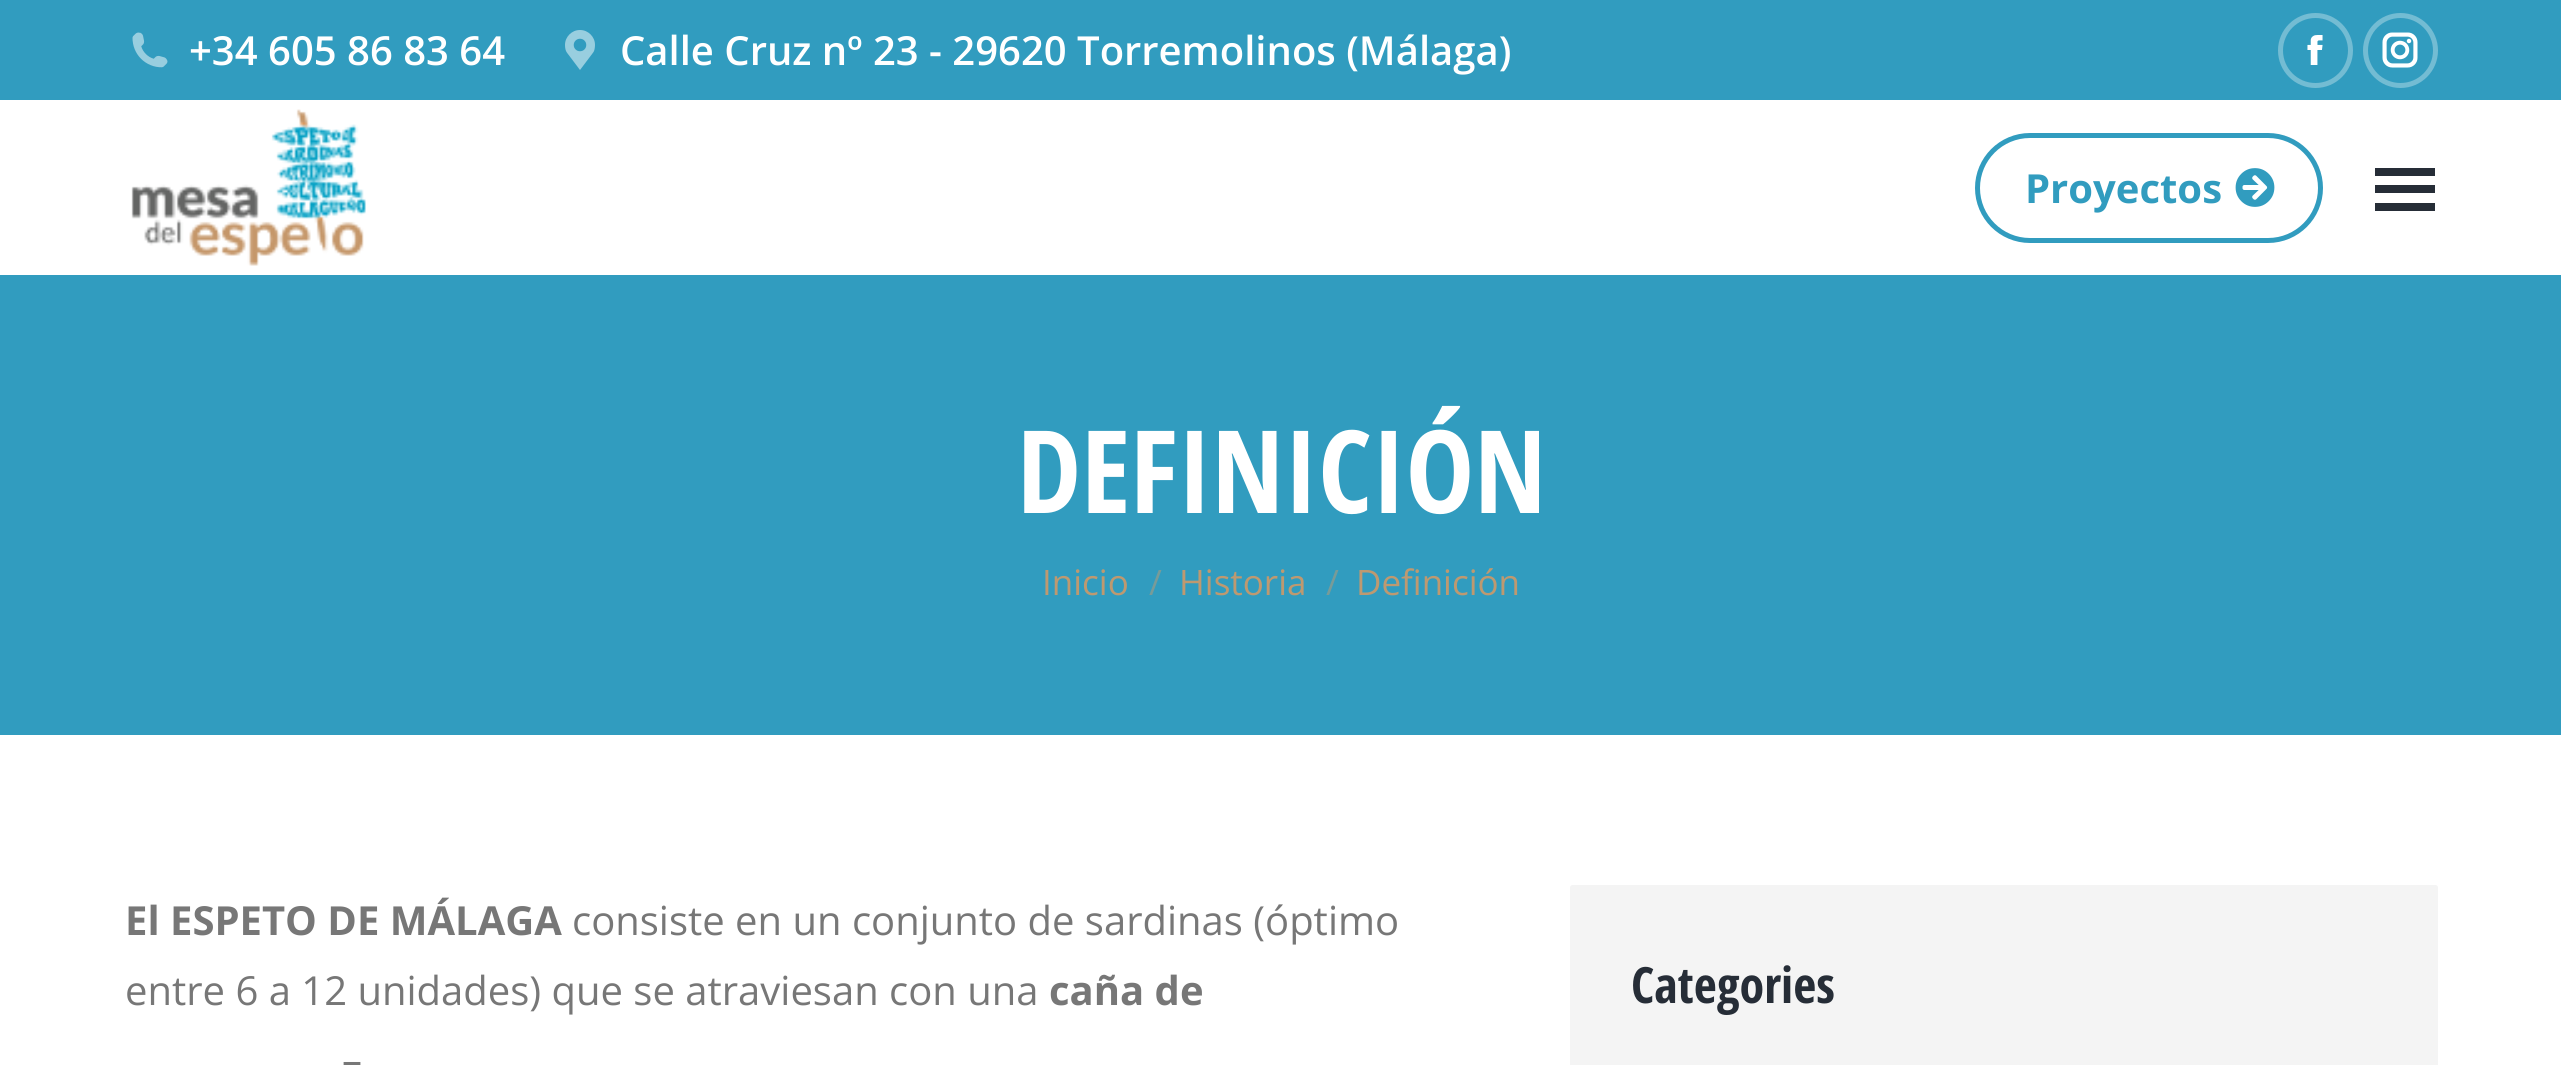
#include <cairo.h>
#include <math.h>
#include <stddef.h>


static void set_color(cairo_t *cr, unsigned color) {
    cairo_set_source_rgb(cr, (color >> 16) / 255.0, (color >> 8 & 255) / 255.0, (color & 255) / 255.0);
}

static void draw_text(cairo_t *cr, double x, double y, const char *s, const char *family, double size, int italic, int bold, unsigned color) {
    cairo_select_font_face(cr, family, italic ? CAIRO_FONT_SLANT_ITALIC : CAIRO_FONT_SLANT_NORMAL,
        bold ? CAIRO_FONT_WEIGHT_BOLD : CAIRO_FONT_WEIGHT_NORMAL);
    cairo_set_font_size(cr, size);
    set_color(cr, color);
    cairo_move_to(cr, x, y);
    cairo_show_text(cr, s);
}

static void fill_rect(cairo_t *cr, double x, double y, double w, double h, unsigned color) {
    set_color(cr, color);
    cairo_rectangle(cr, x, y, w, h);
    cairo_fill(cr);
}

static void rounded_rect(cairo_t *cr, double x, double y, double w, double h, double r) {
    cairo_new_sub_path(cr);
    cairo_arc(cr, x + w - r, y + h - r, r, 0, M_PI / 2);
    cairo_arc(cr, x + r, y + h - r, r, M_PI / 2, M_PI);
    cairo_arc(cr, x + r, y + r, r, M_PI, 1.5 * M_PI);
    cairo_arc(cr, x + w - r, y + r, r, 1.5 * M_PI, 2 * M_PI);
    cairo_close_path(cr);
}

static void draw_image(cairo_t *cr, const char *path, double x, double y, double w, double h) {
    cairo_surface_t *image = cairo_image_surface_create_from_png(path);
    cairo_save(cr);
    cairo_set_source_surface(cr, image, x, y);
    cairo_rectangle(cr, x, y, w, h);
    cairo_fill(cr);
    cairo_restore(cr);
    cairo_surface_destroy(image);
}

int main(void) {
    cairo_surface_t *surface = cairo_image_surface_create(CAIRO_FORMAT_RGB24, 2561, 1065);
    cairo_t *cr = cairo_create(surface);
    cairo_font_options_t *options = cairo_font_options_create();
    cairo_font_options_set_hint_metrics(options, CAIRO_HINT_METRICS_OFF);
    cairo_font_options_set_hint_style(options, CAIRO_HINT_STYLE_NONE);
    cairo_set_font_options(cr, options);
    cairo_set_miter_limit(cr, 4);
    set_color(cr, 0xFFFFFF);
    cairo_paint(cr);
    fill_rect(cr, 0, 0, 2561, 100, 0x319CBF);
    draw_image(cr, "assets/img1.png", 132, 32, 36, 36);
    draw_text(cr, 189, 65, "+34 605 86 83 64", "Open Sans SemiBold", 40, 0, 0, 0xFFFFFF);
    draw_image(cr, "assets/img2.png", 565, 30, 30, 40);
    draw_text(cr, 620, 65, "Calle Cruz nº 23 - 29620 Torremolinos (Málaga)", "Open Sans SemiBold", 40, 0, 0, 0xFFFFFF);
    cairo_new_path(cr);
    cairo_arc(cr, 2315.5, 50.5, 35, 0, 2 * M_PI);
    set_color(cr, 0x73BCD3);
    cairo_set_line_width(cr, 5);
    cairo_stroke(cr);
    draw_image(cr, "assets/img3.png", 2307, 35, 16, 30);
    cairo_arc(cr, 2400.5, 50.5, 35, 0, 2 * M_PI);
    cairo_stroke(cr);
    draw_image(cr, "assets/img4.png", 2382, 32, 36, 36);
    draw_image(cr, "assets/img5.png", 131, 109, 235, 157);
    rounded_rect(cr, 1977.5, 135.5, 343, 105, 52.5);
    set_color(cr, 0x319CBF);
    cairo_stroke(cr);
    draw_text(cr, 2025, 203, "Proyectos", "Open Sans", 40, 0, 1, 0x319CBF);
    draw_image(cr, "assets/img6.png", 2235, 168, 40, 39);
    fill_rect(cr, 2375, 168, 60, 8, 0x262D37);
    fill_rect(cr, 2375, 185, 60, 8, 0x262D37);
    fill_rect(cr, 2375, 203, 60, 8, 0x262D37);
    fill_rect(cr, 0, 275, 2561, 460, 0x319CBF);
    draw_text(cr, 1017, 513, "DEFINICIÓN", "Open Sans Condensed", 115, 0, 1, 0xFFFFFF);
    draw_text(cr, 1042, 595, "Inicio", "Open Sans", 35, 0, 0, 0xBE9970);
    draw_text(cr, 1149, 595, "/", "Open Sans", 35, 0, 0, 0x789B98);
    draw_text(cr, 1179, 595, "Historia", "Open Sans", 35, 0, 0, 0xBE9970);
    draw_text(cr, 1326, 595, "/", "Open Sans", 35, 0, 0, 0x789B98);
    draw_text(cr, 1356, 595, "Definición", "Open Sans", 35, 0, 0, 0xBE9970);
    draw_text(cr, 125, 935, "El ESPETO DE MÁLAGA", "Open Sans", 40, 0, 1, 0x777777);
    draw_text(cr, 572, 935, "consiste en un conjunto de sardinas (óptimo", "Open Sans", 40, 0, 0, 0x777777);
    draw_text(cr, 125, 1005, "entre 6 a 12 unidades) que se atraviesan con una", "Open Sans", 40, 0, 0, 0x777777);
    draw_text(cr, 1049, 1005, "caña de", "Open Sans", 40, 0, 1, 0x777777);
    draw_text(cr, 342, 1075, "–", "Open Sans", 40, 0, 1, 0x777777);
    set_color(cr, 0xF4F4F4);
    rounded_rect(cr, 1570, 885, 868, 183, 2.5);
    cairo_fill(cr);
    draw_text(cr, 1631, 1003, "Categories", "Open Sans Condensed", 50, 0, 1, 0x262D37);
    cairo_surface_write_to_png(surface, "output.png");
    cairo_font_options_destroy(options);
    cairo_destroy(cr);
    cairo_surface_destroy(surface);
    return 0;
}
